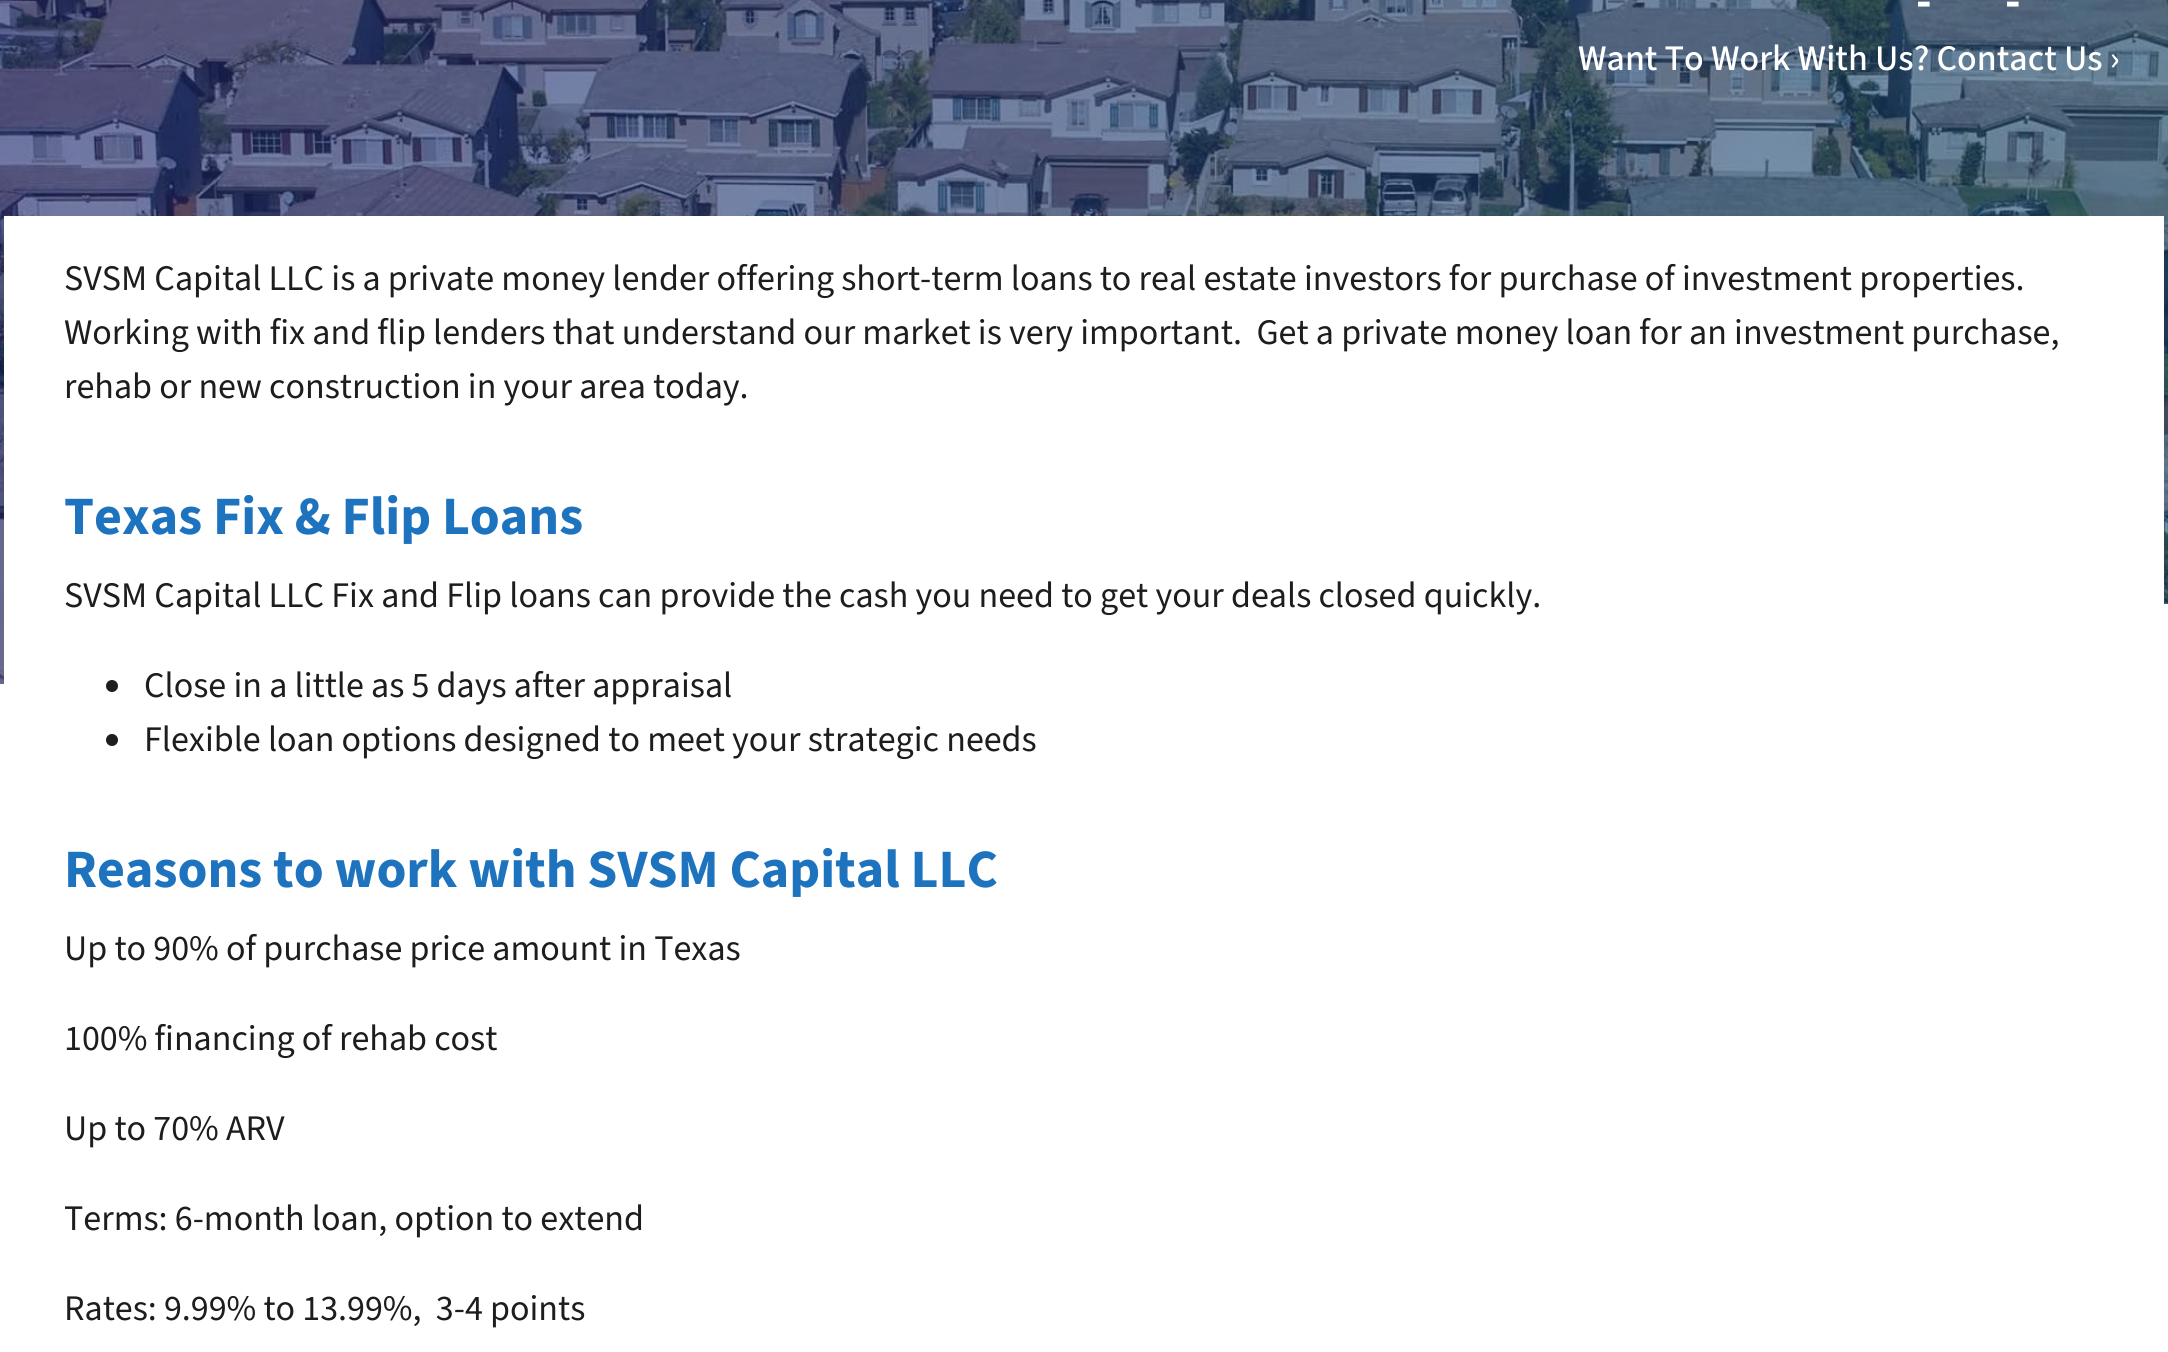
#include <cairo.h>
#include <math.h>
#include <stddef.h>


static void set_color(cairo_t *cr, unsigned color) {
    cairo_set_source_rgb(cr, (color >> 16) / 255.0, (color >> 8 & 255) / 255.0, (color & 255) / 255.0);
}

static void draw_text(cairo_t *cr, double x, double y, const char *s, const char *family, double size, int italic, int bold, unsigned color) {
    cairo_select_font_face(cr, family, italic ? CAIRO_FONT_SLANT_ITALIC : CAIRO_FONT_SLANT_NORMAL,
        bold ? CAIRO_FONT_WEIGHT_BOLD : CAIRO_FONT_WEIGHT_NORMAL);
    cairo_set_font_size(cr, size);
    set_color(cr, color);
    cairo_move_to(cr, x, y);
    cairo_show_text(cr, s);
}

static void fill_rect(cairo_t *cr, double x, double y, double w, double h, unsigned color) {
    set_color(cr, color);
    cairo_rectangle(cr, x, y, w, h);
    cairo_fill(cr);
}

static void draw_image(cairo_t *cr, const char *path, double x, double y, double w, double h) {
    cairo_surface_t *image = cairo_image_surface_create_from_png(path);
    cairo_save(cr);
    cairo_set_source_surface(cr, image, x, y);
    cairo_rectangle(cr, x, y, w, h);
    cairo_fill(cr);
    cairo_restore(cr);
    cairo_surface_destroy(image);
}

int main(void) {
    cairo_surface_t *surface = cairo_image_surface_create(CAIRO_FORMAT_RGB24, 2168, 1352);
    cairo_t *cr = cairo_create(surface);
    cairo_font_options_t *options = cairo_font_options_create();
    cairo_font_options_set_hint_metrics(options, CAIRO_HINT_METRICS_OFF);
    cairo_font_options_set_hint_style(options, CAIRO_HINT_STYLE_NONE);
    cairo_set_font_options(cr, options);
    cairo_set_miter_limit(cr, 4);
    set_color(cr, 0xFFFFFF);
    cairo_paint(cr);
    draw_image(cr, "assets/img1.png", 0, 0, 2168, 684);
    draw_text(cr, 1916, 16, "-", "Source Sans 3", 47, 0, 1, 0xFFFFFF);
    draw_text(cr, 2005, 16, "-", "Source Sans 3", 47, 0, 1, 0xFFFFFF);
    draw_text(cr, 1578, 70, "Want To Work With Us? Contact Us ›", "Source Sans 3 Medium", 36, 0, 0, 0xFFFFFF);
    cairo_save(cr);
    cairo_rectangle(cr, 0, 604, 2168, 86);
    cairo_clip(cr);
    cairo_new_path(cr);
    cairo_move_to(cr, 0, 685);
    cairo_line_to(cr, 0, 690);
    cairo_line_to(cr, 2168, 690);
    cairo_line_to(cr, 2168, 603);
    cairo_close_path(cr);
    cairo_fill(cr);
    cairo_restore(cr);
    fill_rect(cr, 4, 216, 2160, 468, 0xFFFFFF);
    draw_text(cr, 64, 290, "SVSM Capital LLC is a private money lender offering short-term loans to real estate investors for purchase of investment properties.", "Source Sans 3", 36, 0, 0, 0x1D1D1D);
    draw_text(cr, 64, 344, "Working with fix and flip lenders that understand our market is very important.  Get a private money loan for an investment purchase,", "Source Sans 3", 36, 0, 0, 0x1D1D1D);
    draw_text(cr, 64, 398, "rehab or new construction in your area today.", "Source Sans 3", 36, 0, 0, 0x1D1D1D);
    draw_text(cr, 64, 534, "Texas Fix & Flip Loans", "Source Sans 3", 54, 0, 1, 0x1E73BE);
    draw_text(cr, 64, 607, "SVSM Capital LLC Fix and Flip loans can provide the cash you need to get your deals closed quickly.", "Source Sans 3", 36, 0, 0, 0x1D1D1D);
    cairo_new_path(cr);
    cairo_arc(cr, 112, 686, 6, 0, 2 * M_PI);
    cairo_fill(cr);
    draw_text(cr, 144, 697, "Close in a little as 5 days after appraisal", "Source Sans 3", 36, 0, 0, 0x1D1D1D);
    cairo_new_path(cr);
    cairo_arc(cr, 112, 740, 6, 0, 2 * M_PI);
    cairo_fill(cr);
    draw_text(cr, 144, 751, "Flexible loan options designed to meet your strategic needs", "Source Sans 3", 36, 0, 0, 0x1D1D1D);
    draw_text(cr, 64, 887, "Reasons to work with SVSM Capital LLC", "Source Sans 3", 54, 0, 1, 0x1E73BE);
    draw_text(cr, 64, 960, "Up to 90% of purchase price amount in Texas", "Source Sans 3", 36, 0, 0, 0x1D1D1D);
    draw_text(cr, 64, 1050, "100% financing of rehab cost", "Source Sans 3", 36, 0, 0, 0x1D1D1D);
    draw_text(cr, 64, 1140, "Up to 70% ARV", "Source Sans 3", 36, 0, 0, 0x1D1D1D);
    draw_text(cr, 64, 1230, "Terms: 6-month loan, option to extend", "Source Sans 3", 36, 0, 0, 0x1D1D1D);
    draw_text(cr, 64, 1320, "Rates: 9.99% to 13.99%,  3-4 points", "Source Sans 3", 36, 0, 0, 0x1D1D1D);
    cairo_surface_write_to_png(surface, "output.png");
    cairo_font_options_destroy(options);
    cairo_destroy(cr);
    cairo_surface_destroy(surface);
    return 0;
}
